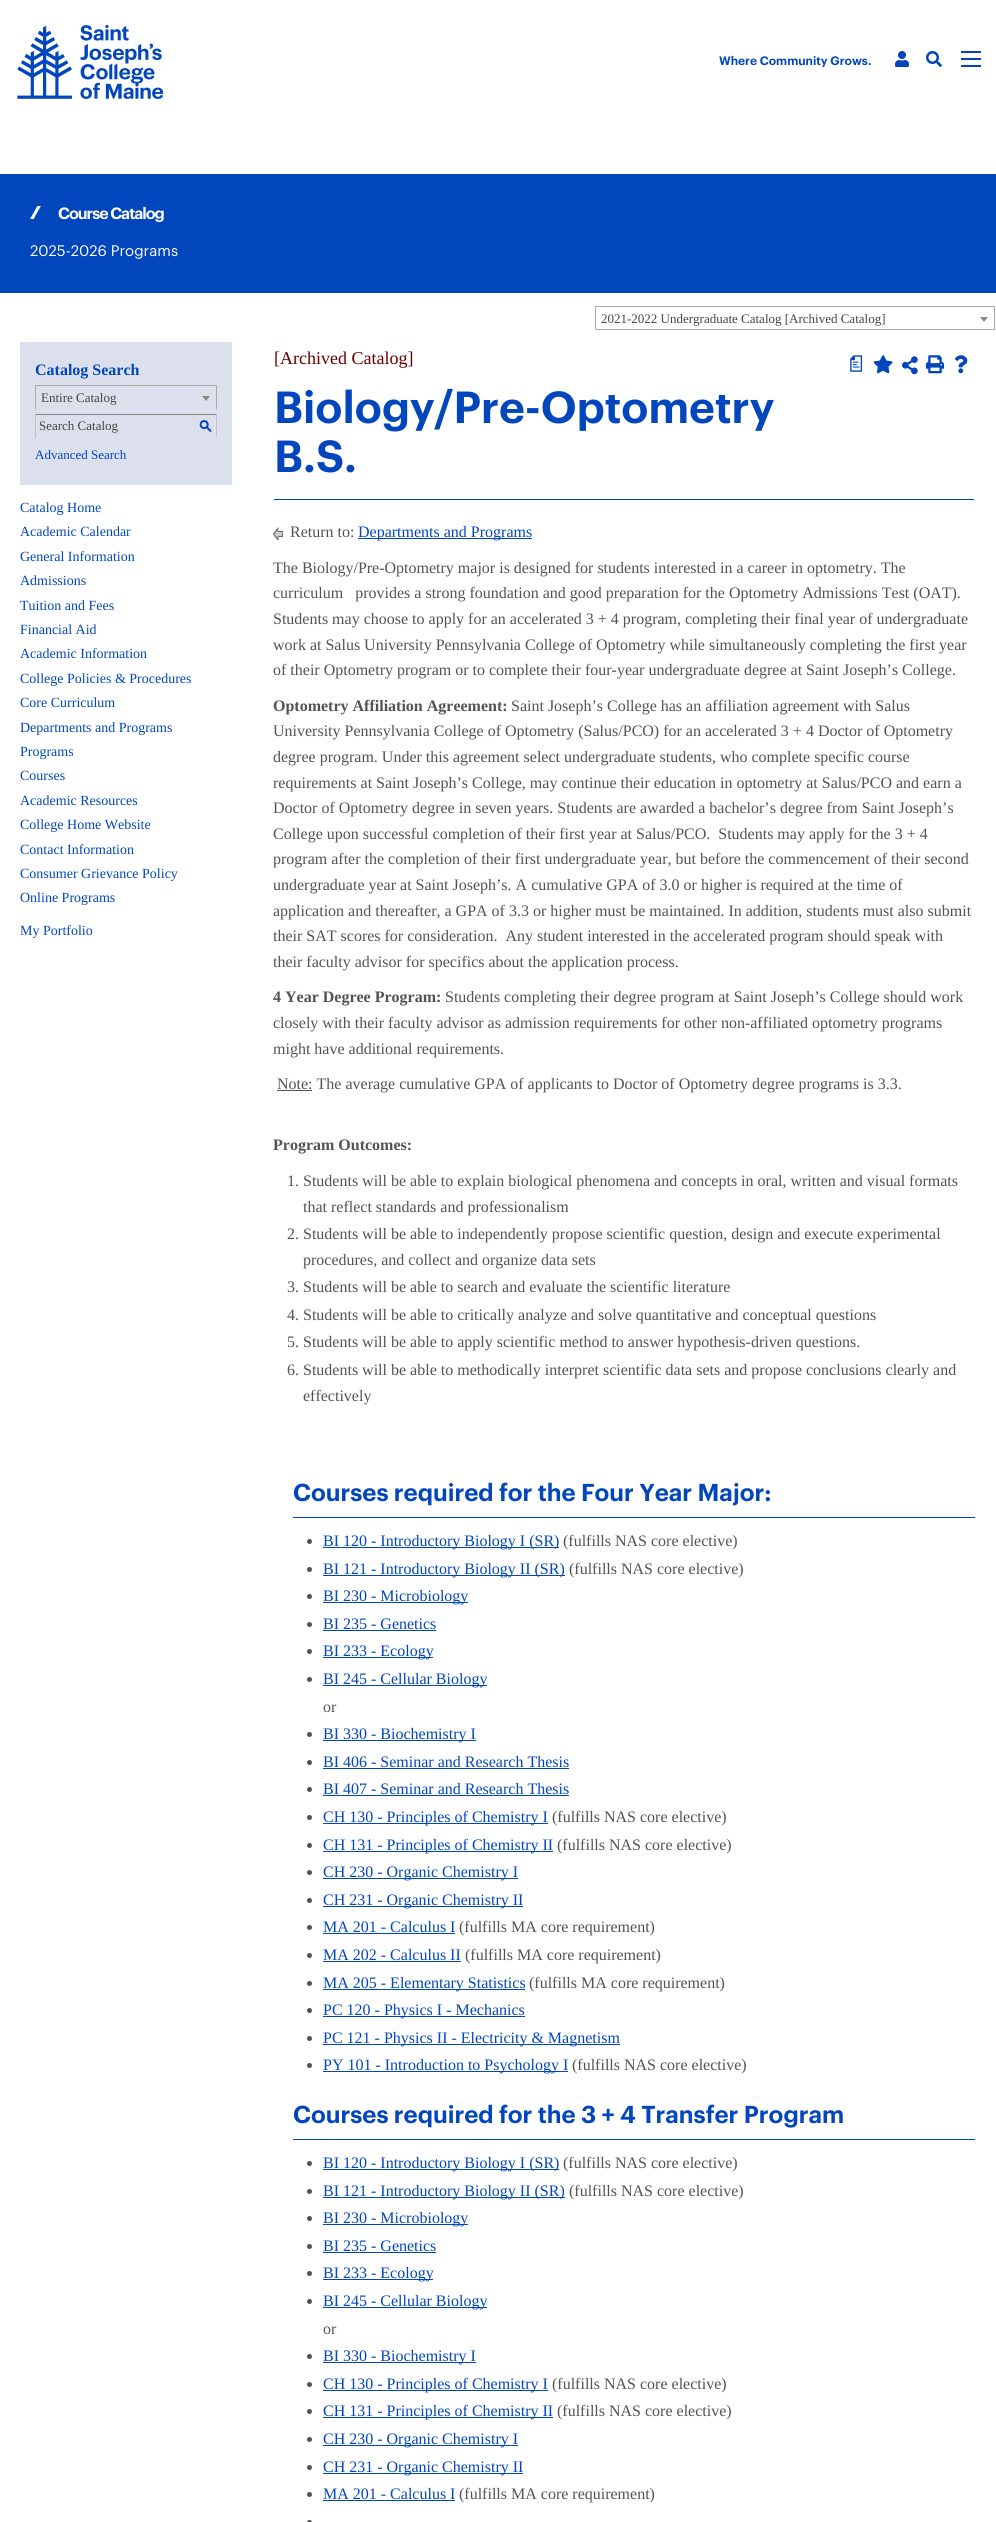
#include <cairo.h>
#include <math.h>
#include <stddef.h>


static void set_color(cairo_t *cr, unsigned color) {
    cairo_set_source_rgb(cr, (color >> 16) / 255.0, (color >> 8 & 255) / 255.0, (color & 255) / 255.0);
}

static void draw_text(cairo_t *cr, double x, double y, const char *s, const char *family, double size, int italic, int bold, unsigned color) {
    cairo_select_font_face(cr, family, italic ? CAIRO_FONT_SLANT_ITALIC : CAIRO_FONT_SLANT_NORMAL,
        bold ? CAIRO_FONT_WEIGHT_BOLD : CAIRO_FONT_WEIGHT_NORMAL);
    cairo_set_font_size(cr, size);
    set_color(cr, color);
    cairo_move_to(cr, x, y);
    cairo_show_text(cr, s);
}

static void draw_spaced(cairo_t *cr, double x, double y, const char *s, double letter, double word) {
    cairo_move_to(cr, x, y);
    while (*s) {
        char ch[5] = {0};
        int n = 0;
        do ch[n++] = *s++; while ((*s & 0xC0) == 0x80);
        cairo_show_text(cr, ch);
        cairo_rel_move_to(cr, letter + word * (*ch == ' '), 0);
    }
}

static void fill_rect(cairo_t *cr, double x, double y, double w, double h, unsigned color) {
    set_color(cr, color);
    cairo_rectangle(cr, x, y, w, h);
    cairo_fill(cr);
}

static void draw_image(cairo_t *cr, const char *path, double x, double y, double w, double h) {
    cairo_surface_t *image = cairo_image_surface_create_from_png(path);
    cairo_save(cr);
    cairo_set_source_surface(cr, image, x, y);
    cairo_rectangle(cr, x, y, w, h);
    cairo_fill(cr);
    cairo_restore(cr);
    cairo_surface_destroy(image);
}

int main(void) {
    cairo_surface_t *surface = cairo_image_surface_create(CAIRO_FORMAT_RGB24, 996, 2522);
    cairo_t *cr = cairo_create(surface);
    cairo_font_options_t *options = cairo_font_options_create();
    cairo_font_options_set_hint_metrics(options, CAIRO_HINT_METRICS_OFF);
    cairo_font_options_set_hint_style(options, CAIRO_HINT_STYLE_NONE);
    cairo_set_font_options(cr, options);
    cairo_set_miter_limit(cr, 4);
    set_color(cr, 0xFFFFFF);
    cairo_paint(cr);
    draw_image(cr, "assets/img1.png", 17, 24, 147, 75);
    draw_text(cr, 719, 65, "Where Community Grows.", "Graphik SemiBold", 12, 0, 0, 0x0246BE);
    draw_image(cr, "assets/img2.png", 895, 51, 14, 16);
    draw_image(cr, "assets/img3.png", 926, 51, 16, 16);
    fill_rect(cr, 961, 51, 20, 2, 0x0344BA);
    fill_rect(cr, 961, 58, 20, 2, 0x0344BA);
    fill_rect(cr, 961, 65, 20, 2, 0x0344BA);
    fill_rect(cr, 0, 174, 996, 119, 0x0246BE);
    draw_image(cr, "assets/img4.png", 30, 206, 11, 13);
    cairo_set_font_size(cr, 16);
    set_color(cr, 0xFFFFFF);
    draw_spaced(cr, 58, 219, "Course Catalog", -1, 0);
    draw_text(cr, 30, 256, "2025-2026 Programs", "Graphik", 15, 0, 0, 0xFFFFFF);
    cairo_rectangle(cr, 595.5, 306.5, 399, 23);
    set_color(cr, 0xAAAAAA);
    cairo_set_line_width(cr, 1);
    cairo_stroke(cr);
    draw_text(cr, 601, 323, "2021-2022 Undergraduate Catalog [Archived Catalog]", "Liberation Serif", 13, 0, 0, 0x444444);
    set_color(cr, 0x888888);
    cairo_new_path(cr);
    cairo_move_to(cr, 980, 317);
    cairo_line_to(cr, 988, 317);
    cairo_line_to(cr, 984, 322);
    cairo_close_path(cr);
    cairo_fill(cr);
    fill_rect(cr, 20, 342, 212, 143, 0xDCE0EC);
    draw_text(cr, 35, 375, "Catalog Search", "Liberation Serif", 16, 0, 1, 0x0246BE);
    cairo_rectangle(cr, 35.5, 385.5, 181, 23);
    set_color(cr, 0xAAAAAA);
    cairo_stroke(cr);
    fill_rect(cr, 36, 408, 180, 1, 0xDCE0EC);
    draw_text(cr, 41, 402, "Entire Catalog", "Liberation Serif", 13, 0, 0, 0x444444);
    set_color(cr, 0x888888);
    cairo_new_path(cr);
    cairo_move_to(cr, 202, 396);
    cairo_line_to(cr, 210, 396);
    cairo_line_to(cr, 206, 401);
    cairo_close_path(cr);
    cairo_fill(cr);
    fill_rect(cr, 35, 414, 182, 1, 0x848484);
    fill_rect(cr, 216, 414, 1, 24, 0xC1C1C1);
    fill_rect(cr, 35, 437, 182, 1, 0xE1E1E1);
    fill_rect(cr, 35, 414, 1, 24, 0xC1C1C1);
    draw_text(cr, 39, 430, "Search Catalog", "Liberation Serif", 13, 0, 0, 0x444444);
    draw_text(cr, 199, 430, "S", "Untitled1 Medium", 13, 0, 0, 0x0246BE);
    draw_text(cr, 35, 459, "Advanced Search", "Liberation Serif", 13, 0, 0, 0x0246BE);
    draw_text(cr, 20, 512, "Catalog Home", "Liberation Serif", 14, 0, 0, 0x0246BE);
    draw_text(cr, 20, 536, "Academic Calendar", "Liberation Serif", 14, 0, 0, 0x0246BE);
    draw_text(cr, 20, 561, "General Information", "Liberation Serif", 14, 0, 0, 0x0246BE);
    draw_text(cr, 20, 585, "Admissions", "Liberation Serif", 14, 0, 0, 0x0246BE);
    draw_text(cr, 20, 610, "Tuition and Fees", "Liberation Serif", 14, 0, 0, 0x0246BE);
    draw_text(cr, 20, 634, "Financial Aid", "Liberation Serif", 14, 0, 0, 0x0246BE);
    draw_text(cr, 20, 658, "Academic Information", "Liberation Serif", 14, 0, 0, 0x0246BE);
    draw_text(cr, 20, 683, "College Policies & Procedures", "Liberation Serif", 14, 0, 0, 0x0246BE);
    draw_text(cr, 20, 707, "Core Curriculum", "Liberation Serif", 14, 0, 0, 0x0246BE);
    draw_text(cr, 20, 732, "Departments and Programs", "Liberation Serif", 14, 0, 0, 0x0246BE);
    draw_text(cr, 20, 756, "Programs", "Liberation Serif", 14, 0, 0, 0x0246BE);
    draw_text(cr, 20, 780, "Courses", "Liberation Serif", 14, 0, 0, 0x0246BE);
    draw_text(cr, 20, 805, "Academic Resources", "Liberation Serif", 14, 0, 0, 0x0246BE);
    draw_text(cr, 20, 829, "College Home Website", "Liberation Serif", 14, 0, 0, 0x0246BE);
    draw_text(cr, 20, 854, "Contact Information", "Liberation Serif", 14, 0, 0, 0x0246BE);
    draw_text(cr, 20, 878, "Consumer Grievance Policy", "Liberation Serif", 14, 0, 0, 0x0246BE);
    draw_text(cr, 20, 902, "Online Programs", "Liberation Serif", 14, 0, 0, 0x0246BE);
    draw_text(cr, 20, 935, "My Portfolio", "Liberation Serif", 14, 0, 0, 0x0246BE);
    draw_text(cr, 274, 364, "[Archived Catalog]", "Liberation Serif", 18, 0, 0, 0x660000);
    draw_text(cr, 847, 369, "a", "Untitled1 Medium", 18, 0, 0, 0x0246BE);
    draw_image(cr, "assets/img5.png", 873, 355, 20, 19);
    draw_image(cr, "assets/img6.png", 902, 356, 16, 19);
    draw_image(cr, "assets/img7.png", 926, 355, 18, 19);
    draw_image(cr, "assets/img8.png", 955, 355, 13, 19);
    draw_text(cr, 274, 423, "Biology/Pre-Optometry", "Graphik SemiBold", 44, 0, 0, 0x0246BE);
    draw_text(cr, 274, 472, "B.S.", "Graphik SemiBold", 44, 0, 0, 0x0246BE);
    fill_rect(cr, 274, 499, 700, 1, 0x0246BE);
    draw_image(cr, "assets/img9.png", 273, 527, 10, 14);
    draw_text(cr, 290, 537, "Return to:", "Liberation Serif", 16, 0, 0, 0x535353);
    fill_rect(cr, 358, 538, 174, 1, 0x0246BE);
    draw_text(cr, 358, 537, "Departments and Programs", "Liberation Serif", 16, 0, 0, 0x0246BE);
    draw_text(cr, 273, 573, "The Biology/Pre-Optometry major is designed for students interested in a career in optometry. The", "Liberation Serif", 16, 0, 0, 0x535353);
    draw_text(cr, 273, 598, "curriculum   provides a strong foundation and good preparation for the Optometry Admissions Test (OAT).", "Liberation Serif", 16, 0, 0, 0x535353);
    draw_text(cr, 273, 624, "Students may choose to apply for an accelerated 3 + 4 program, completing their final year of undergraduate", "Liberation Serif", 16, 0, 0, 0x535353);
    draw_text(cr, 273, 650, "work at Salus University Pennsylvania College of Optometry while simultaneously completing the first year", "Liberation Serif", 16, 0, 0, 0x535353);
    draw_text(cr, 273, 675, "of their Optometry program or to complete their four-year undergraduate degree at Saint Joseph’s College.", "Liberation Serif", 16, 0, 0, 0x535353);
    draw_text(cr, 273, 711, "Optometry Affiliation Agreement:", "Liberation Serif", 16, 0, 1, 0x535353);
    draw_text(cr, 511, 711, "Saint Joseph’s College has an affiliation agreement with Salus", "Liberation Serif", 16, 0, 0, 0x535353);
    draw_text(cr, 273, 736, "University Pennsylvania College of Optometry (Salus/PCO) for an accelerated 3 + 4 Doctor of Optometry", "Liberation Serif", 16, 0, 0, 0x535353);
    draw_text(cr, 273, 762, "degree program. Under this agreement select undergraduate students, who complete specific course", "Liberation Serif", 16, 0, 0, 0x535353);
    draw_text(cr, 273, 788, "requirements at Saint Joseph’s College, may continue their education in optometry at Salus/PCO and earn a", "Liberation Serif", 16, 0, 0, 0x535353);
    draw_text(cr, 273, 813, "Doctor of Optometry degree in seven years. Students are awarded a bachelor’s degree from Saint Joseph’s", "Liberation Serif", 16, 0, 0, 0x535353);
    draw_text(cr, 273, 839, "College upon successful completion of their first year at Salus/PCO.  Students may apply for the 3 + 4", "Liberation Serif", 16, 0, 0, 0x535353);
    draw_text(cr, 273, 864, "program after the completion of their first undergraduate year, but before the commencement of their second", "Liberation Serif", 16, 0, 0, 0x535353);
    draw_text(cr, 273, 890, "undergraduate year at Saint Joseph’s. A cumulative GPA of 3.0 or higher is required at the time of", "Liberation Serif", 16, 0, 0, 0x535353);
    draw_text(cr, 273, 916, "application and thereafter, a GPA of 3.3 or higher must be maintained. In addition, students must also submit", "Liberation Serif", 16, 0, 0, 0x535353);
    draw_text(cr, 273, 941, "their SAT scores for consideration.  Any student interested in the accelerated program should speak with", "Liberation Serif", 16, 0, 0, 0x535353);
    draw_text(cr, 273, 967, "their faculty advisor for specifics about the application process.", "Liberation Serif", 16, 0, 0, 0x535353);
    draw_text(cr, 273, 1002, "4 Year Degree Program:", "Liberation Serif", 16, 0, 1, 0x535353);
    draw_text(cr, 445, 1002, "Students completing their degree program at Saint Joseph’s College should work", "Liberation Serif", 16, 0, 0, 0x535353);
    draw_text(cr, 273, 1028, "closely with their faculty advisor as admission requirements for other non-affiliated optometry programs", "Liberation Serif", 16, 0, 0, 0x535353);
    draw_text(cr, 273, 1054, "might have additional requirements.", "Liberation Serif", 16, 0, 0, 0x535353);
    fill_rect(cr, 277, 1090, 35, 1, 0x535353);
    draw_text(cr, 277, 1089, "Note: The average cumulative GPA of applicants to Doctor of Optometry degree programs is 3.3.", "Liberation Serif", 16, 0, 0, 0x535353);
    draw_text(cr, 273, 1150, "Program Outcomes:", "Liberation Serif", 16, 0, 1, 0x535353);
    draw_text(cr, 287, 1186, "1. Students will be able to explain biological phenomena and concepts in oral, written and visual formats", "Liberation Serif", 16, 0, 0, 0x535353);
    draw_text(cr, 303, 1212, "that reflect standards and professionalism", "Liberation Serif", 16, 0, 0, 0x535353);
    draw_text(cr, 287, 1239, "2. Students will be able to independently propose scientific question, design and execute experimental", "Liberation Serif", 16, 0, 0, 0x535353);
    draw_text(cr, 303, 1265, "procedures, and collect and organize data sets", "Liberation Serif", 16, 0, 0, 0x535353);
    draw_text(cr, 287, 1292, "3. Students will be able to search and evaluate the scientific literature", "Liberation Serif", 16, 0, 0, 0x535353);
    draw_text(cr, 287, 1320, "4. Students will be able to critically analyze and solve quantitative and conceptual questions", "Liberation Serif", 16, 0, 0, 0x535353);
    draw_text(cr, 287, 1347, "5. Students will be able to apply scientific method to answer hypothesis-driven questions.", "Liberation Serif", 16, 0, 0, 0x535353);
    draw_text(cr, 287, 1375, "6. Students will be able to methodically interpret scientific data sets and propose conclusions clearly and", "Liberation Serif", 16, 0, 0, 0x535353);
    draw_text(cr, 303, 1401, "effectively", "Liberation Serif", 16, 0, 0, 0x535353);
    draw_text(cr, 293, 1501, "Courses required for the Four Year Major:", "Graphik SemiBold", 24, 0, 0, 0x0246BE);
    fill_rect(cr, 293, 1517, 682, 1, 0x0246BE);
    set_color(cr, 0x535353);
    cairo_new_path(cr);
    cairo_arc(cr, 309.5, 1541.5, 2.5, 0, 2 * M_PI);
    cairo_fill(cr);
    fill_rect(cr, 323, 1547, 236, 1, 0x0246BE);
    draw_text(cr, 323, 1546, "BI 120 - Introductory Biology I (SR)", "Liberation Serif", 16, 0, 0, 0x0246BE);
    draw_text(cr, 563, 1546, "(fulfills NAS core elective)", "Liberation Serif", 16, 0, 0, 0x535353);
    cairo_new_path(cr);
    cairo_arc(cr, 309.5, 1569.5, 2.5, 0, 2 * M_PI);
    cairo_fill(cr);
    fill_rect(cr, 323, 1575, 242, 1, 0x0246BE);
    draw_text(cr, 323, 1574, "BI 121 - Introductory Biology II (SR)", "Liberation Serif", 16, 0, 0, 0x0246BE);
    draw_text(cr, 569, 1574, "(fulfills NAS core elective)", "Liberation Serif", 16, 0, 0, 0x535353);
    cairo_new_path(cr);
    cairo_arc(cr, 309.5, 1596.5, 2.5, 0, 2 * M_PI);
    cairo_fill(cr);
    fill_rect(cr, 323, 1602, 145, 1, 0x0246BE);
    draw_text(cr, 323, 1601, "BI 230 - Microbiology", "Liberation Serif", 16, 0, 0, 0x0246BE);
    set_color(cr, 0x535353);
    cairo_new_path(cr);
    cairo_arc(cr, 309.5, 1624.5, 2.5, 0, 2 * M_PI);
    cairo_fill(cr);
    draw_text(cr, 323, 1629, "BI 235 - Genetics", "Liberation Serif", 16, 0, 0, 0x0246BE);
    fill_rect(cr, 323, 1630, 113, 1, 0x0246BE);
    set_color(cr, 0x535353);
    cairo_new_path(cr);
    cairo_arc(cr, 309.5, 1651.5, 2.5, 0, 2 * M_PI);
    cairo_fill(cr);
    fill_rect(cr, 323, 1657, 110, 1, 0x0246BE);
    draw_text(cr, 323, 1656, "BI 233 - Ecology", "Liberation Serif", 16, 0, 0, 0x0246BE);
    set_color(cr, 0x535353);
    cairo_new_path(cr);
    cairo_arc(cr, 309.5, 1679.5, 2.5, 0, 2 * M_PI);
    cairo_fill(cr);
    fill_rect(cr, 323, 1685, 164, 1, 0x0246BE);
    draw_text(cr, 323, 1684, "BI 245 - Cellular Biology", "Liberation Serif", 16, 0, 0, 0x0246BE);
    draw_text(cr, 323, 1712, "or", "Liberation Serif", 16, 0, 0, 0x535353);
    cairo_new_path(cr);
    cairo_arc(cr, 309.5, 1734.5, 2.5, 0, 2 * M_PI);
    cairo_fill(cr);
    fill_rect(cr, 323, 1740, 153, 1, 0x0246BE);
    draw_text(cr, 323, 1739, "BI 330 - Biochemistry I", "Liberation Serif", 16, 0, 0, 0x0246BE);
    set_color(cr, 0x535353);
    cairo_new_path(cr);
    cairo_arc(cr, 309.5, 1762.5, 2.5, 0, 2 * M_PI);
    cairo_fill(cr);
    draw_text(cr, 323, 1767, "BI 406 - Seminar and Research Thesis", "Liberation Serif", 16, 0, 0, 0x0246BE);
    fill_rect(cr, 323, 1768, 246, 1, 0x0246BE);
    set_color(cr, 0x535353);
    cairo_new_path(cr);
    cairo_arc(cr, 309.5, 1789.5, 2.5, 0, 2 * M_PI);
    cairo_fill(cr);
    draw_text(cr, 323, 1794, "BI 407 - Seminar and Research Thesis", "Liberation Serif", 16, 0, 0, 0x0246BE);
    fill_rect(cr, 323, 1795, 246, 1, 0x0246BE);
    set_color(cr, 0x535353);
    cairo_new_path(cr);
    cairo_arc(cr, 309.5, 1817.5, 2.5, 0, 2 * M_PI);
    cairo_fill(cr);
    fill_rect(cr, 323, 1823, 225, 1, 0x0246BE);
    draw_text(cr, 323, 1822, "CH 130 - Principles of Chemistry I", "Liberation Serif", 16, 0, 0, 0x0246BE);
    draw_text(cr, 552, 1822, "(fulfills NAS core elective)", "Liberation Serif", 16, 0, 0, 0x535353);
    cairo_new_path(cr);
    cairo_arc(cr, 309.5, 1845.5, 2.5, 0, 2 * M_PI);
    cairo_fill(cr);
    fill_rect(cr, 323, 1851, 230, 1, 0x0246BE);
    draw_text(cr, 323, 1850, "CH 131 - Principles of Chemistry II", "Liberation Serif", 16, 0, 0, 0x0246BE);
    draw_text(cr, 557, 1850, "(fulfills NAS core elective)", "Liberation Serif", 16, 0, 0, 0x535353);
    cairo_new_path(cr);
    cairo_arc(cr, 309.5, 1872.5, 2.5, 0, 2 * M_PI);
    cairo_fill(cr);
    fill_rect(cr, 323, 1878, 195, 1, 0x0246BE);
    draw_text(cr, 323, 1877, "CH 230 - Organic Chemistry I", "Liberation Serif", 16, 0, 0, 0x0246BE);
    set_color(cr, 0x535353);
    cairo_new_path(cr);
    cairo_arc(cr, 309.5, 1900.5, 2.5, 0, 2 * M_PI);
    cairo_fill(cr);
    fill_rect(cr, 323, 1906, 200, 1, 0x0246BE);
    draw_text(cr, 323, 1905, "CH 231 - Organic Chemistry II", "Liberation Serif", 16, 0, 0, 0x0246BE);
    set_color(cr, 0x535353);
    cairo_new_path(cr);
    cairo_arc(cr, 309.5, 1927.5, 2.5, 0, 2 * M_PI);
    cairo_fill(cr);
    draw_text(cr, 323, 1932, "MA 201 - Calculus I", "Liberation Serif", 16, 0, 0, 0x0246BE);
    fill_rect(cr, 323, 1933, 132, 1, 0x0246BE);
    draw_text(cr, 459, 1932, "(fulfills MA core requirement)", "Liberation Serif", 16, 0, 0, 0x535353);
    cairo_new_path(cr);
    cairo_arc(cr, 309.5, 1955.5, 2.5, 0, 2 * M_PI);
    cairo_fill(cr);
    draw_text(cr, 323, 1960, "MA 202 - Calculus II", "Liberation Serif", 16, 0, 0, 0x0246BE);
    fill_rect(cr, 323, 1961, 138, 1, 0x0246BE);
    draw_text(cr, 465, 1960, "(fulfills MA core requirement)", "Liberation Serif", 16, 0, 0, 0x535353);
    cairo_new_path(cr);
    cairo_arc(cr, 309.5, 1983.5, 2.5, 0, 2 * M_PI);
    cairo_fill(cr);
    fill_rect(cr, 323, 1989, 202, 1, 0x0246BE);
    draw_text(cr, 323, 1988, "MA 205 - Elementary Statistics", "Liberation Serif", 16, 0, 0, 0x0246BE);
    draw_text(cr, 529, 1988, "(fulfills MA core requirement)", "Liberation Serif", 16, 0, 0, 0x535353);
    cairo_new_path(cr);
    cairo_arc(cr, 309.5, 2010.5, 2.5, 0, 2 * M_PI);
    cairo_fill(cr);
    fill_rect(cr, 323, 2016, 202, 1, 0x0246BE);
    draw_text(cr, 323, 2015, "PC 120 - Physics I - Mechanics", "Liberation Serif", 16, 0, 0, 0x0246BE);
    set_color(cr, 0x535353);
    cairo_new_path(cr);
    cairo_arc(cr, 309.5, 2038.5, 2.5, 0, 2 * M_PI);
    cairo_fill(cr);
    fill_rect(cr, 323, 2044, 297, 1, 0x0246BE);
    draw_text(cr, 323, 2043, "PC 121 - Physics II - Electricity & Magnetism", "Liberation Serif", 16, 0, 0, 0x0246BE);
    set_color(cr, 0x535353);
    cairo_new_path(cr);
    cairo_arc(cr, 309.5, 2065.5, 2.5, 0, 2 * M_PI);
    cairo_fill(cr);
    fill_rect(cr, 323, 2071, 245, 1, 0x0246BE);
    draw_text(cr, 323, 2070, "PY 101 - Introduction to Psychology I", "Liberation Serif", 16, 0, 0, 0x0246BE);
    draw_text(cr, 572, 2070, "(fulfills NAS core elective)", "Liberation Serif", 16, 0, 0, 0x535353);
    draw_text(cr, 293, 2123, "Courses required for the 3 + 4 Transfer Program", "Graphik SemiBold", 24, 0, 0, 0x0246BE);
    fill_rect(cr, 293, 2139, 682, 1, 0x0246BE);
    set_color(cr, 0x535353);
    cairo_new_path(cr);
    cairo_arc(cr, 309.5, 2163.5, 2.5, 0, 2 * M_PI);
    cairo_fill(cr);
    fill_rect(cr, 323, 2169, 236, 1, 0x0246BE);
    draw_text(cr, 323, 2168, "BI 120 - Introductory Biology I (SR)", "Liberation Serif", 16, 0, 0, 0x0246BE);
    draw_text(cr, 563, 2168, "(fulfills NAS core elective)", "Liberation Serif", 16, 0, 0, 0x535353);
    cairo_new_path(cr);
    cairo_arc(cr, 309.5, 2191.5, 2.5, 0, 2 * M_PI);
    cairo_fill(cr);
    fill_rect(cr, 323, 2197, 242, 1, 0x0246BE);
    draw_text(cr, 323, 2196, "BI 121 - Introductory Biology II (SR)", "Liberation Serif", 16, 0, 0, 0x0246BE);
    draw_text(cr, 569, 2196, "(fulfills NAS core elective)", "Liberation Serif", 16, 0, 0, 0x535353);
    cairo_new_path(cr);
    cairo_arc(cr, 309.5, 2218.5, 2.5, 0, 2 * M_PI);
    cairo_fill(cr);
    fill_rect(cr, 323, 2224, 145, 1, 0x0246BE);
    draw_text(cr, 323, 2223, "BI 230 - Microbiology", "Liberation Serif", 16, 0, 0, 0x0246BE);
    set_color(cr, 0x535353);
    cairo_new_path(cr);
    cairo_arc(cr, 309.5, 2246.5, 2.5, 0, 2 * M_PI);
    cairo_fill(cr);
    draw_text(cr, 323, 2251, "BI 235 - Genetics", "Liberation Serif", 16, 0, 0, 0x0246BE);
    fill_rect(cr, 323, 2252, 113, 1, 0x0246BE);
    set_color(cr, 0x535353);
    cairo_new_path(cr);
    cairo_arc(cr, 309.5, 2273.5, 2.5, 0, 2 * M_PI);
    cairo_fill(cr);
    fill_rect(cr, 323, 2279, 110, 1, 0x0246BE);
    draw_text(cr, 323, 2278, "BI 233 - Ecology", "Liberation Serif", 16, 0, 0, 0x0246BE);
    set_color(cr, 0x535353);
    cairo_new_path(cr);
    cairo_arc(cr, 309.5, 2301.5, 2.5, 0, 2 * M_PI);
    cairo_fill(cr);
    fill_rect(cr, 323, 2307, 164, 1, 0x0246BE);
    draw_text(cr, 323, 2306, "BI 245 - Cellular Biology", "Liberation Serif", 16, 0, 0, 0x0246BE);
    draw_text(cr, 323, 2334, "or", "Liberation Serif", 16, 0, 0, 0x535353);
    cairo_new_path(cr);
    cairo_arc(cr, 309.5, 2356.5, 2.5, 0, 2 * M_PI);
    cairo_fill(cr);
    fill_rect(cr, 323, 2362, 153, 1, 0x0246BE);
    draw_text(cr, 323, 2361, "BI 330 - Biochemistry I", "Liberation Serif", 16, 0, 0, 0x0246BE);
    set_color(cr, 0x535353);
    cairo_new_path(cr);
    cairo_arc(cr, 309.5, 2384.5, 2.5, 0, 2 * M_PI);
    cairo_fill(cr);
    fill_rect(cr, 323, 2390, 225, 1, 0x0246BE);
    draw_text(cr, 323, 2389, "CH 130 - Principles of Chemistry I", "Liberation Serif", 16, 0, 0, 0x0246BE);
    draw_text(cr, 552, 2389, "(fulfills NAS core elective)", "Liberation Serif", 16, 0, 0, 0x535353);
    cairo_new_path(cr);
    cairo_arc(cr, 309.5, 2411.5, 2.5, 0, 2 * M_PI);
    cairo_fill(cr);
    fill_rect(cr, 323, 2417, 230, 1, 0x0246BE);
    draw_text(cr, 323, 2416, "CH 131 - Principles of Chemistry II", "Liberation Serif", 16, 0, 0, 0x0246BE);
    draw_text(cr, 557, 2416, "(fulfills NAS core elective)", "Liberation Serif", 16, 0, 0, 0x535353);
    cairo_new_path(cr);
    cairo_arc(cr, 309.5, 2439.5, 2.5, 0, 2 * M_PI);
    cairo_fill(cr);
    fill_rect(cr, 323, 2445, 195, 1, 0x0246BE);
    draw_text(cr, 323, 2444, "CH 230 - Organic Chemistry I", "Liberation Serif", 16, 0, 0, 0x0246BE);
    set_color(cr, 0x535353);
    cairo_new_path(cr);
    cairo_arc(cr, 309.5, 2467.5, 2.5, 0, 2 * M_PI);
    cairo_fill(cr);
    fill_rect(cr, 323, 2473, 200, 1, 0x0246BE);
    draw_text(cr, 323, 2472, "CH 231 - Organic Chemistry II", "Liberation Serif", 16, 0, 0, 0x0246BE);
    set_color(cr, 0x535353);
    cairo_new_path(cr);
    cairo_arc(cr, 309.5, 2494.5, 2.5, 0, 2 * M_PI);
    cairo_fill(cr);
    draw_text(cr, 323, 2499, "MA 201 - Calculus I", "Liberation Serif", 16, 0, 0, 0x0246BE);
    fill_rect(cr, 323, 2500, 132, 1, 0x0246BE);
    draw_text(cr, 459, 2499, "(fulfills MA core requirement)", "Liberation Serif", 16, 0, 0, 0x535353);
    cairo_new_path(cr);
    cairo_arc(cr, 309.5, 2522.5, 2.5, 0, 2 * M_PI);
    cairo_fill(cr);
    cairo_surface_write_to_png(surface, "output.png");
    cairo_font_options_destroy(options);
    cairo_destroy(cr);
    cairo_surface_destroy(surface);
    return 0;
}
